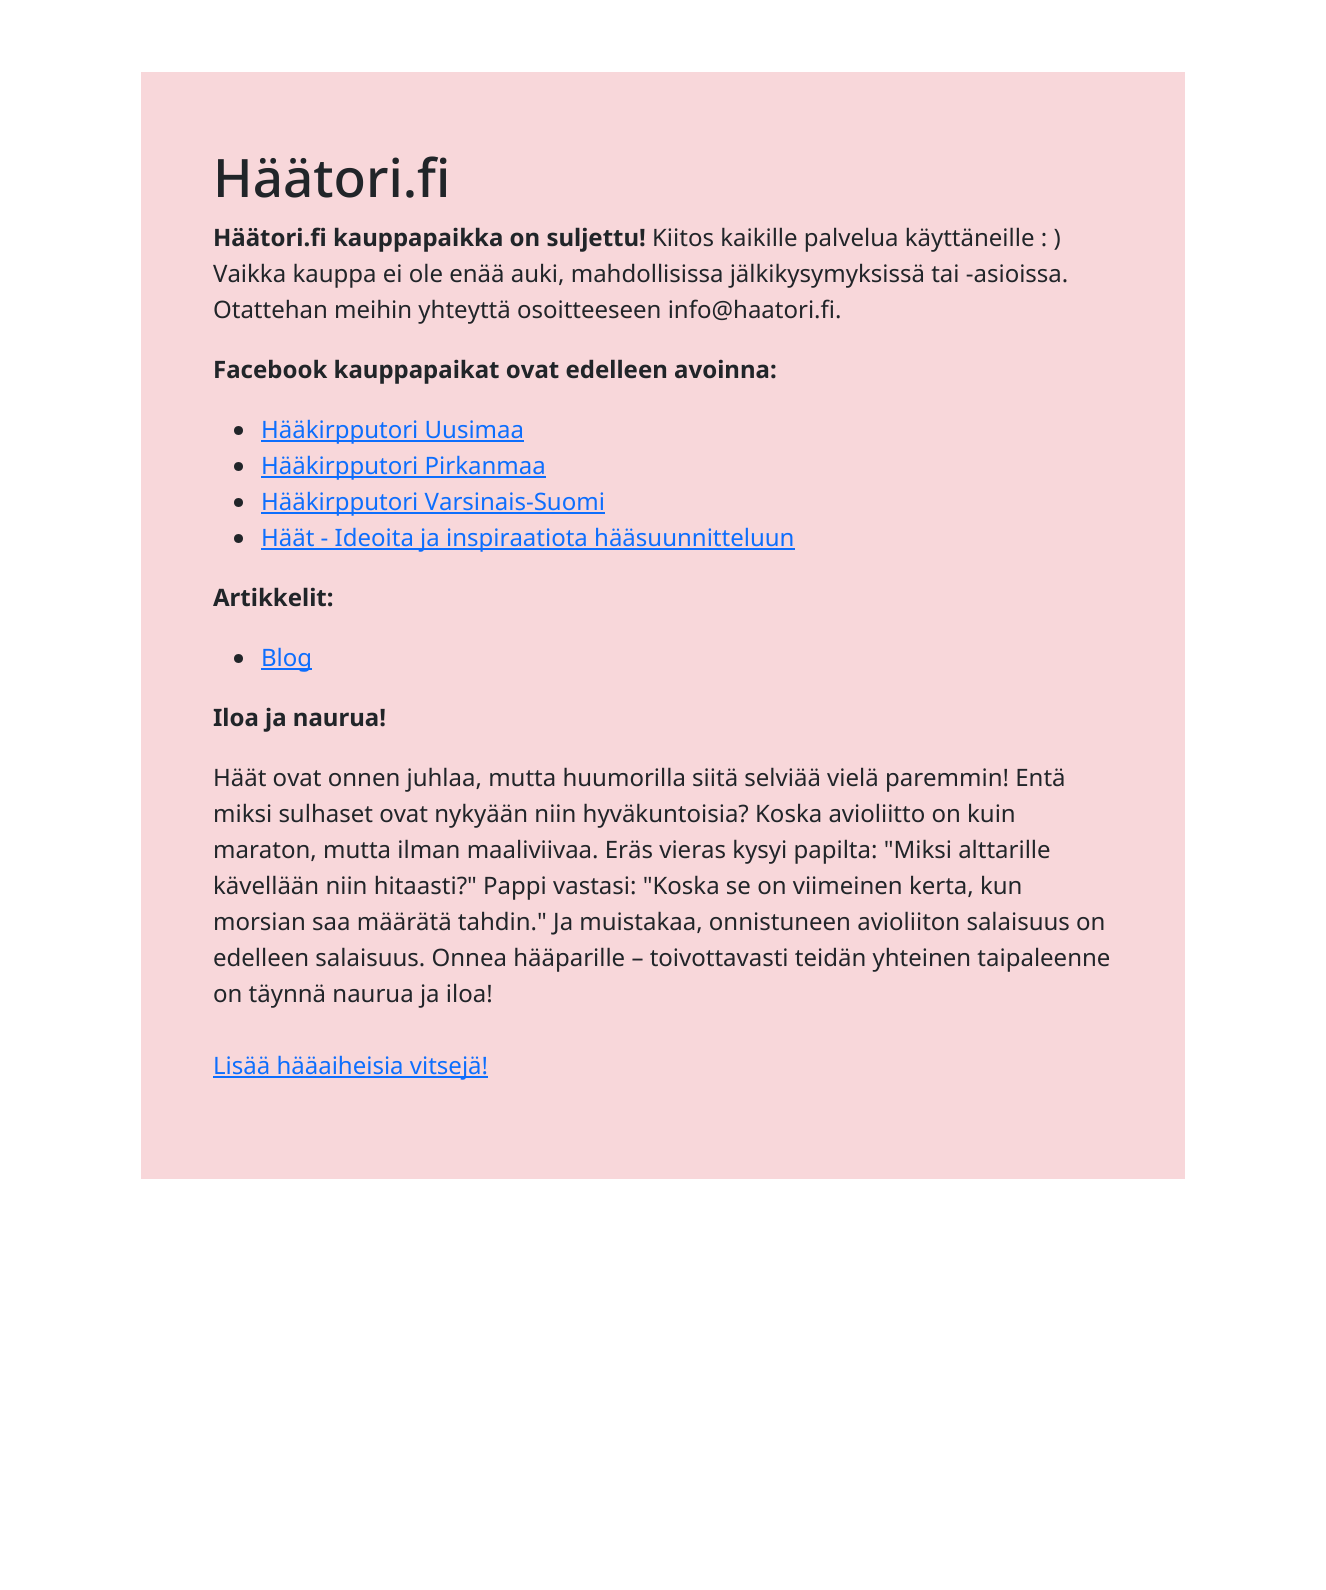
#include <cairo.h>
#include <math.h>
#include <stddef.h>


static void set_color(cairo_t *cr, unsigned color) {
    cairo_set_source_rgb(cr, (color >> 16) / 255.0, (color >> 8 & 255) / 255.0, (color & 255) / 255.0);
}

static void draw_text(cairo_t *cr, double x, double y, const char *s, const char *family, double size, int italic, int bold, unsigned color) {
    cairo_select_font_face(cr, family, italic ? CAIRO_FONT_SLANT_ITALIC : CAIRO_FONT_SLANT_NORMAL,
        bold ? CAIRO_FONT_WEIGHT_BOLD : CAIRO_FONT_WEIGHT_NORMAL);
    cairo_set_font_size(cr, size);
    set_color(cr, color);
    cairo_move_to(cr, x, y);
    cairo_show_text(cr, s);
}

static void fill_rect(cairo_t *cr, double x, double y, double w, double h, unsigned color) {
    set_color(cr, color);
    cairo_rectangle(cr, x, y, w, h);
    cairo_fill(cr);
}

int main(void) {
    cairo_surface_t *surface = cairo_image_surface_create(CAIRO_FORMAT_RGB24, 1326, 1590);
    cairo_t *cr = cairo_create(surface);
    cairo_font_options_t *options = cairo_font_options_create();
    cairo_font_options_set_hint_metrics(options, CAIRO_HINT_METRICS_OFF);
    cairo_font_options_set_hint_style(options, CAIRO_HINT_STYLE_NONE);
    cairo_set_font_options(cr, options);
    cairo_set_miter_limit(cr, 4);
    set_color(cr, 0xFFFFFF);
    cairo_paint(cr);
    fill_rect(cr, 141, 72, 1044, 1107, 0xF8D7DA);
    draw_text(cr, 213, 197, "Häätori.fi", "Noto Sans Medium", 53, 0, 0, 0x212529);
    draw_text(cr, 213, 246, "Häätori.fi kauppapaikka on suljettu!", "Noto Sans", 24, 0, 1, 0x212529);
    draw_text(cr, 652, 246, "Kiitos kaikille palvelua käyttäneille : )", "Noto Sans", 24, 0, 0, 0x212529);
    draw_text(cr, 213, 282, "Vaikka kauppa ei ole enää auki, mahdollisissa jälkikysymyksissä tai -asioissa.", "Noto Sans", 24, 0, 0, 0x212529);
    draw_text(cr, 213, 318, "Otattehan meihin yhteyttä osoitteeseen info@haatori.fi.", "Noto Sans", 24, 0, 0, 0x212529);
    draw_text(cr, 213, 378, "Facebook kauppapaikat ovat edelleen avoinna:", "Noto Sans", 24, 0, 1, 0x212529);
    cairo_new_path(cr);
    cairo_arc(cr, 238.5, 430.5, 4.5, 0, 2 * M_PI);
    cairo_fill(cr);
    fill_rect(cr, 261, 440, 263, 2, 0x0D6EFD);
    draw_text(cr, 261, 438, "Hääkirpputori Uusimaa", "Noto Sans", 24, 0, 0, 0x0D6EFD);
    set_color(cr, 0x212529);
    cairo_new_path(cr);
    cairo_arc(cr, 238.5, 466.5, 4.5, 0, 2 * M_PI);
    cairo_fill(cr);
    fill_rect(cr, 261, 476, 285, 2, 0x0D6EFD);
    draw_text(cr, 261, 474, "Hääkirpputori Pirkanmaa", "Noto Sans", 24, 0, 0, 0x0D6EFD);
    set_color(cr, 0x212529);
    cairo_new_path(cr);
    cairo_arc(cr, 238.5, 502.5, 4.5, 0, 2 * M_PI);
    cairo_fill(cr);
    fill_rect(cr, 261, 512, 344, 2, 0x0D6EFD);
    draw_text(cr, 261, 510, "Hääkirpputori Varsinais-Suomi", "Noto Sans", 24, 0, 0, 0x0D6EFD);
    set_color(cr, 0x212529);
    cairo_new_path(cr);
    cairo_arc(cr, 238.5, 538.5, 4.5, 0, 2 * M_PI);
    cairo_fill(cr);
    fill_rect(cr, 261, 548, 534, 2, 0x0D6EFD);
    draw_text(cr, 261, 546, "Häät - Ideoita ja inspiraatiota hääsuunnitteluun", "Noto Sans", 24, 0, 0, 0x0D6EFD);
    draw_text(cr, 213, 606, "Artikkelit:", "Noto Sans", 24, 0, 1, 0x212529);
    cairo_new_path(cr);
    cairo_arc(cr, 238.5, 658.5, 4.5, 0, 2 * M_PI);
    cairo_fill(cr);
    fill_rect(cr, 261, 668, 51, 2, 0x0D6EFD);
    draw_text(cr, 261, 666, "Blog", "Noto Sans", 24, 0, 0, 0x0D6EFD);
    draw_text(cr, 213, 726, "Iloa ja naurua!", "Noto Sans", 24, 0, 1, 0x212529);
    draw_text(cr, 213, 786, "Häät ovat onnen juhlaa, mutta huumorilla siitä selviää vielä paremmin! Entä", "Noto Sans", 24, 0, 0, 0x212529);
    draw_text(cr, 213, 822, "miksi sulhaset ovat nykyään niin hyväkuntoisia? Koska avioliitto on kuin", "Noto Sans", 24, 0, 0, 0x212529);
    draw_text(cr, 213, 858, "maraton, mutta ilman maaliviivaa. Eräs vieras kysyi papilta: \"Miksi alttarille", "Noto Sans", 24, 0, 0, 0x212529);
    draw_text(cr, 213, 894, "kävellään niin hitaasti?\" Pappi vastasi: \"Koska se on viimeinen kerta, kun", "Noto Sans", 24, 0, 0, 0x212529);
    draw_text(cr, 213, 930, "morsian saa määrätä tahdin.\" Ja muistakaa, onnistuneen avioliiton salaisuus on", "Noto Sans", 24, 0, 0, 0x212529);
    draw_text(cr, 213, 966, "edelleen salaisuus. Onnea hääparille – toivottavasti teidän yhteinen taipaleenne", "Noto Sans", 24, 0, 0, 0x212529);
    draw_text(cr, 213, 1002, "on täynnä naurua ja iloa!", "Noto Sans", 24, 0, 0, 0x212529);
    fill_rect(cr, 213, 1076, 275, 2, 0x0D6EFD);
    draw_text(cr, 213, 1074, "Lisää hääaiheisia vitsejä!", "Noto Sans", 24, 0, 0, 0x0D6EFD);
    cairo_surface_write_to_png(surface, "output.png");
    cairo_font_options_destroy(options);
    cairo_destroy(cr);
    cairo_surface_destroy(surface);
    return 0;
}
